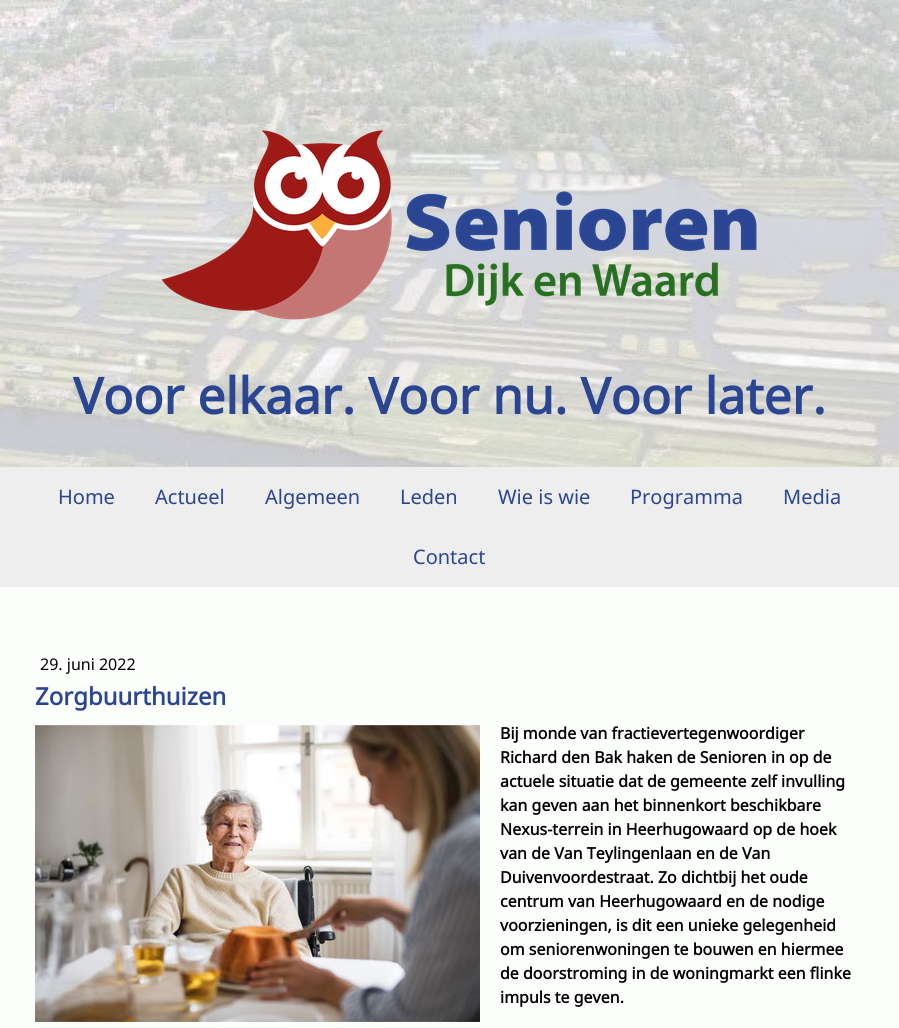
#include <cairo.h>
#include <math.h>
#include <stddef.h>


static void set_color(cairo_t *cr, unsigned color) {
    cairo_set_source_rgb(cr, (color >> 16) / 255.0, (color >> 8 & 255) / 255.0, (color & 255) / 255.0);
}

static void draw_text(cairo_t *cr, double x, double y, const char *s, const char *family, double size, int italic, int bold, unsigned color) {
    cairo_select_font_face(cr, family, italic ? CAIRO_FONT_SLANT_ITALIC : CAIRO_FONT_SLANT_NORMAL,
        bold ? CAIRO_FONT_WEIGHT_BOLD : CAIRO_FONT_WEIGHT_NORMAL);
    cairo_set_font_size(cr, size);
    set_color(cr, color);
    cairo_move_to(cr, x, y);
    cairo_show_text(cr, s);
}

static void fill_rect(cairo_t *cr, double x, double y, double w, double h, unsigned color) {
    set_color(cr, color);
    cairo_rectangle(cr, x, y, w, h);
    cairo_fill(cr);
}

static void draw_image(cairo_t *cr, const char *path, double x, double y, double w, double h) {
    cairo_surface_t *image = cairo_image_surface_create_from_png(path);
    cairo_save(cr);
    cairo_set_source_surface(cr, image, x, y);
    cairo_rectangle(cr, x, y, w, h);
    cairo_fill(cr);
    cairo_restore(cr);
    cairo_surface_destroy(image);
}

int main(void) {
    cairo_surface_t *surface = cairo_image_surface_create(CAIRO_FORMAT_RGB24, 899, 1028);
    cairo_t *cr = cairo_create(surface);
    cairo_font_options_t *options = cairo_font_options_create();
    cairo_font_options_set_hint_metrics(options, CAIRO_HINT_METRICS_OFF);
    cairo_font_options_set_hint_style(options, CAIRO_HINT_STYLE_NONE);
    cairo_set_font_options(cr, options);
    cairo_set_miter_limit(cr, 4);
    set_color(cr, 0xFFFFFF);
    cairo_paint(cr);
    draw_image(cr, "assets/img1.png", 0, 0, 899, 467);
    draw_image(cr, "assets/img2.png", 161, 130, 596, 190);
    draw_text(cr, 73, 414, "Voor elkaar. Voor nu. Voor later.", "Noto Sans", 50, 0, 1, 0x2A4693);
    fill_rect(cr, 0, 467, 899, 120, 0xEEEEEE);
    draw_text(cr, 58, 504, "Home", "Noto Sans", 20, 0, 0, 0x2A4693);
    draw_text(cr, 155, 504, "Actueel", "Noto Sans", 20, 0, 0, 0x2A4693);
    draw_text(cr, 265, 504, "Algemeen", "Noto Sans", 20, 0, 0, 0x2A4693);
    draw_text(cr, 400, 504, "Leden", "Noto Sans", 20, 0, 0, 0x2A4693);
    draw_text(cr, 498, 504, "Wie is wie", "Noto Sans", 20, 0, 0, 0x2A4693);
    draw_text(cr, 630, 504, "Programma", "Noto Sans", 20, 0, 0, 0x2A4693);
    draw_text(cr, 783, 504, "Media", "Noto Sans", 20, 0, 0, 0x2A4693);
    draw_text(cr, 413, 564, "Contact", "Noto Sans", 20, 0, 0, 0x2A4693);
    fill_rect(cr, 0, 587, 899, 441, 0xFCFEFC);
    draw_text(cr, 40, 670, "29. juni 2022", "Noto Sans", 16, 0, 0, 0x000000);
    draw_text(cr, 35, 705, "Zorgbuurthuizen", "Noto Sans", 24, 0, 1, 0x2A4693);
    draw_image(cr, "assets/img3.png", 35, 725, 445, 297);
    draw_text(cr, 500, 739, "Bij monde van fractievertegenwoordiger", "Noto Sans", 16, 0, 1, 0x000000);
    draw_text(cr, 500, 763, "Richard den Bak haken de Senioren in op de", "Noto Sans", 16, 0, 1, 0x000000);
    draw_text(cr, 500, 787, "actuele situatie dat de gemeente zelf invulling", "Noto Sans", 16, 0, 1, 0x000000);
    draw_text(cr, 500, 811, "kan geven aan het binnenkort beschikbare", "Noto Sans", 16, 0, 1, 0x000000);
    draw_text(cr, 500, 835, "Nexus-terrein in Heerhugowaard op de hoek", "Noto Sans", 16, 0, 1, 0x000000);
    draw_text(cr, 500, 859, "van de Van Teylingenlaan en de Van", "Noto Sans", 16, 0, 1, 0x000000);
    draw_text(cr, 500, 883, "Duivenvoordestraat. Zo dichtbij het oude", "Noto Sans", 16, 0, 1, 0x000000);
    draw_text(cr, 500, 907, "centrum van Heerhugowaard en de nodige", "Noto Sans", 16, 0, 1, 0x000000);
    draw_text(cr, 500, 931, "voorzieningen, is dit een unieke gelegenheid", "Noto Sans", 16, 0, 1, 0x000000);
    draw_text(cr, 500, 955, "om seniorenwoningen te bouwen en hiermee", "Noto Sans", 16, 0, 1, 0x000000);
    draw_text(cr, 500, 979, "de doorstroming in de woningmarkt een flinke", "Noto Sans", 16, 0, 1, 0x000000);
    draw_text(cr, 500, 1003, "impuls te geven.", "Noto Sans", 16, 0, 1, 0x000000);
    cairo_surface_write_to_png(surface, "output.png");
    cairo_font_options_destroy(options);
    cairo_destroy(cr);
    cairo_surface_destroy(surface);
    return 0;
}
